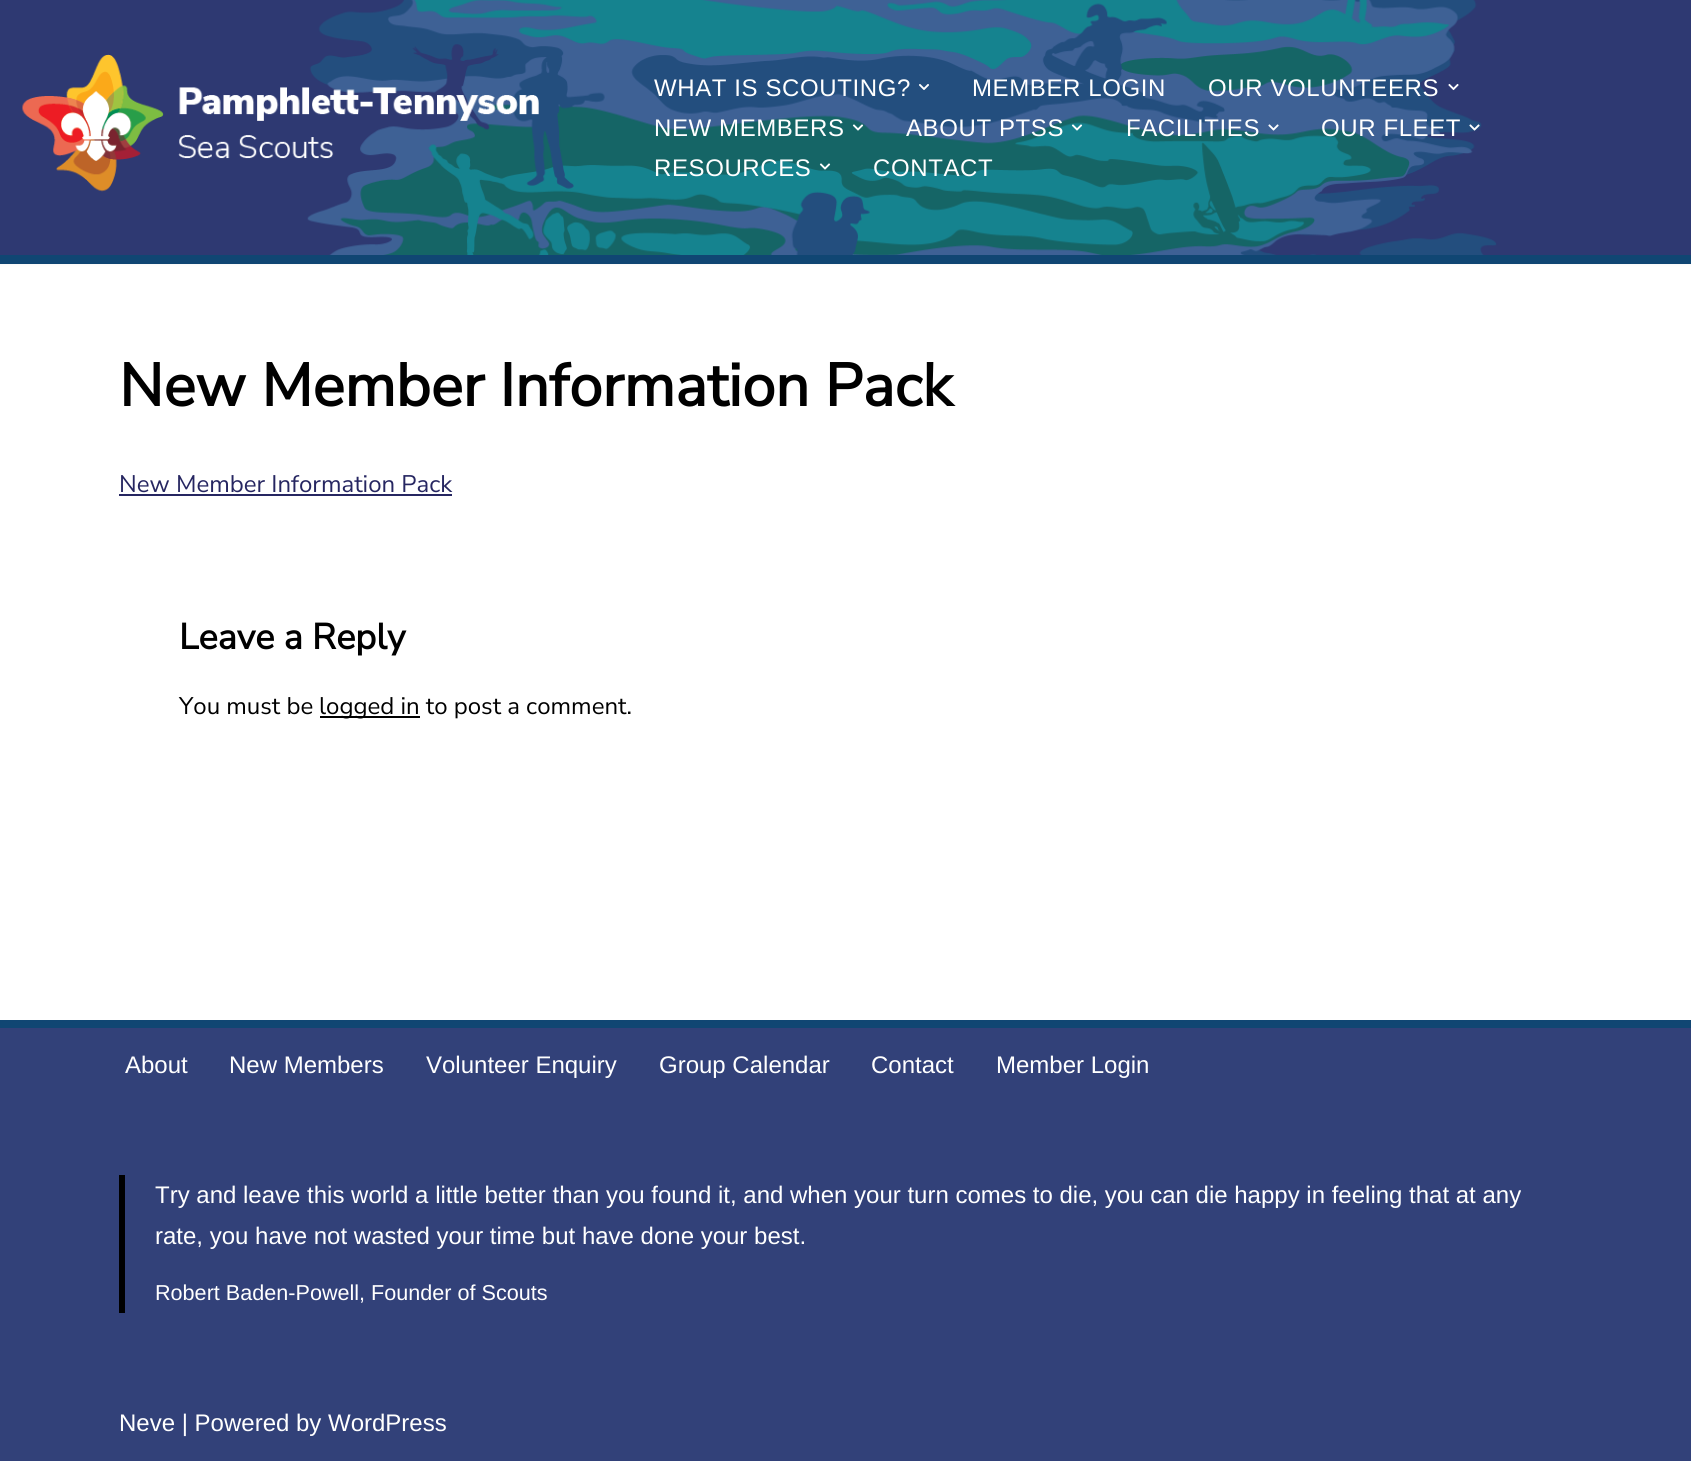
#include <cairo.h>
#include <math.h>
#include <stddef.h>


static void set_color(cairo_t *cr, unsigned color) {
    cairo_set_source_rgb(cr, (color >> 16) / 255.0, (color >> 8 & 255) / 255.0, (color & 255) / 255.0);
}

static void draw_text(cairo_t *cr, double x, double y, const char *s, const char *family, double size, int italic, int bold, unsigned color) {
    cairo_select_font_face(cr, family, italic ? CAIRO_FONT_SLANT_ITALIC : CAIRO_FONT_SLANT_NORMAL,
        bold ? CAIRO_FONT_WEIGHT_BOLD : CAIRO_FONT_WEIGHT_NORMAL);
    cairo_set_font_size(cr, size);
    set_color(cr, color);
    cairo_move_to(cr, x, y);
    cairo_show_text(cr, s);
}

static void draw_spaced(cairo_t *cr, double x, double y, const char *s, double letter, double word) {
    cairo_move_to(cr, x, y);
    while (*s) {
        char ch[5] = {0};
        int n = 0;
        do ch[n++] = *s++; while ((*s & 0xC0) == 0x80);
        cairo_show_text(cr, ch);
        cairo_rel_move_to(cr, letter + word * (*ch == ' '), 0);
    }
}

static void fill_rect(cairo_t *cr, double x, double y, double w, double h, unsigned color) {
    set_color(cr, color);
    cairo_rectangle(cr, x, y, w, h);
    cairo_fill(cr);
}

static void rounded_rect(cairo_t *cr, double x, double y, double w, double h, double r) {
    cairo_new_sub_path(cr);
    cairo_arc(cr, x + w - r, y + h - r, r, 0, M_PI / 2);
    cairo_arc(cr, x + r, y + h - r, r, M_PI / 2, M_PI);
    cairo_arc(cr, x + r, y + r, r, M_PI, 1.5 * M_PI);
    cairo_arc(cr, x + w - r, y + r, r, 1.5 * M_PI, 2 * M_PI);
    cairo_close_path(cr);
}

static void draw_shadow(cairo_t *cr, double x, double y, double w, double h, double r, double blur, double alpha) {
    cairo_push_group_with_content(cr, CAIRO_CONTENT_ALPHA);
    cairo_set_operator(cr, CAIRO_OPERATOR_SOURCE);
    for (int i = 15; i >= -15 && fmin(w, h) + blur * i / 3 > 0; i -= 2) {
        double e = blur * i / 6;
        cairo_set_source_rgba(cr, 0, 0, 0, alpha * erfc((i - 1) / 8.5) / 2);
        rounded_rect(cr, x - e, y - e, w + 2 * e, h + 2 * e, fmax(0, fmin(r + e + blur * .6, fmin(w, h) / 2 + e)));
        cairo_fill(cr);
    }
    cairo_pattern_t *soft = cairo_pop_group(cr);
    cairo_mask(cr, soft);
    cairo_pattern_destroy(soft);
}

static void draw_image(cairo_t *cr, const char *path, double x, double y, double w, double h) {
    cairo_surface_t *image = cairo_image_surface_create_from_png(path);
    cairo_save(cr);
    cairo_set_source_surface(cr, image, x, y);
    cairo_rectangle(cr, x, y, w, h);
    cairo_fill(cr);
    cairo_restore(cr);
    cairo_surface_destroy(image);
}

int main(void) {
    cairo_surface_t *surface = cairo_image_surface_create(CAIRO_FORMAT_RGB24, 1691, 1461);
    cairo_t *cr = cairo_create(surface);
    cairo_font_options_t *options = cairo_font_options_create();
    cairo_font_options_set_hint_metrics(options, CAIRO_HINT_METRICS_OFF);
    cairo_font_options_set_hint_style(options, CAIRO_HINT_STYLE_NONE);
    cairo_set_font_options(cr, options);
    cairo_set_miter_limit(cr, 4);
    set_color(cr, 0xFFFFFF);
    cairo_paint(cr);
    set_color(cr, 0x000000);
    draw_shadow(cr, 0, -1, 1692, 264, 0, 2, 0.1);
    draw_image(cr, "assets/img1.png", 0, 0, 1691, 255);
    fill_rect(cr, 0, 255, 1691, 9, 0x104673);
    draw_image(cr, "assets/img2.png", 22, 54, 517, 138);
    cairo_select_font_face(cr, "Liberation Sans", CAIRO_FONT_SLANT_NORMAL, CAIRO_FONT_WEIGHT_NORMAL);
    cairo_set_font_size(cr, 24);
    set_color(cr, 0xFFFFFF);
    draw_spaced(cr, 654, 96, "WHAT IS SCOUTING?", 0.6, 0);
    draw_image(cr, "assets/img3.png", 919, 84, 10, 6);
    draw_spaced(cr, 972, 96, "MEMBER LOGIN", 0.6, 0);
    draw_spaced(cr, 1208, 96, "OUR VOLUNTEERS", 0.6, 0);
    draw_image(cr, "assets/img4.png", 1448, 83, 11, 8);
    draw_spaced(cr, 654, 136, "NEW MEMBERS", 0.6, 0);
    draw_image(cr, "assets/img5.png", 852, 124, 12, 7);
    draw_spaced(cr, 906, 136, "ABOUT PTSS", 0.6, 0);
    draw_image(cr, "assets/img6.png", 1071, 124, 12, 7);
    draw_spaced(cr, 1126, 136, "FACILITIES", 0.6, 0);
    draw_image(cr, "assets/img7.png", 1268, 124, 11, 7);
    draw_spaced(cr, 1321, 136, "OUR FLEET", 0.6, 0);
    draw_image(cr, "assets/img8.png", 1469, 124, 11, 7);
    draw_spaced(cr, 654, 176, "RESOURCES", 0.6, 0);
    draw_image(cr, "assets/img9.png", 819, 163, 12, 7);
    draw_spaced(cr, 873, 176, "CONTACT", 0.6, 0);
    draw_text(cr, 119, 406, "New Member Information Pack", "Nunito Sans", 60, 0, 1, 0x000000);
    draw_text(cr, 119, 492, "New Member Information Pack", "Nunito Sans ExtraLight", 24, 0, 0, 0x262661);
    fill_rect(cr, 119, 494, 333, 2, 0x262661);
    draw_text(cr, 179, 649, "Leave a Reply", "Nunito Sans", 36, 0, 1, 0x000000);
    draw_text(cr, 179, 714, "You must be", "Nunito Sans ExtraLight", 24, 0, 0, 0x000000);
    fill_rect(cr, 320, 716, 100, 2, 0x000000);
    draw_text(cr, 319, 714, "logged in to post a comment.", "Nunito Sans ExtraLight", 24, 0, 0, 0x000000);
    fill_rect(cr, 0, 1020, 1691, 8, 0x104673);
    fill_rect(cr, 0, 1028, 1691, 433, 0x324179);
    draw_text(cr, 125, 1073, "About", "Liberation Sans", 24, 0, 0, 0xFFFFFF);
    draw_text(cr, 229, 1073, "New Members", "Liberation Sans", 24, 0, 0, 0xFFFFFF);
    draw_text(cr, 426, 1073, "Volunteer Enquiry", "Liberation Sans", 24, 0, 0, 0xFFFFFF);
    draw_text(cr, 659, 1073, "Group Calendar", "Liberation Sans", 24, 0, 0, 0xFFFFFF);
    draw_text(cr, 871, 1073, "Contact", "Liberation Sans", 24, 0, 0, 0xFFFFFF);
    draw_text(cr, 996, 1073, "Member Login", "Liberation Sans", 24, 0, 0, 0xFFFFFF);
    fill_rect(cr, 119, 1175, 6, 138, 0x000000);
    draw_text(cr, 155, 1203, "Try and leave this world a little better than you found it, and when your turn comes to die, you can die happy in feeling that at any", "Liberation Sans", 24, 0, 0, 0xFFFFFF);
    draw_text(cr, 155, 1244, "rate, you have not wasted your time but have done your best.", "Liberation Sans", 24, 0, 0, 0xFFFFFF);
    draw_text(cr, 155, 1300, "Robert Baden-Powell, Founder of Scouts", "Liberation Sans", 21.6, 0, 0, 0xFFFFFF);
    draw_text(cr, 119, 1431, "Neve | Powered by WordPress", "Liberation Sans", 24, 0, 0, 0xFFFFFF);
    cairo_surface_write_to_png(surface, "output.png");
    cairo_font_options_destroy(options);
    cairo_destroy(cr);
    cairo_surface_destroy(surface);
    return 0;
}
